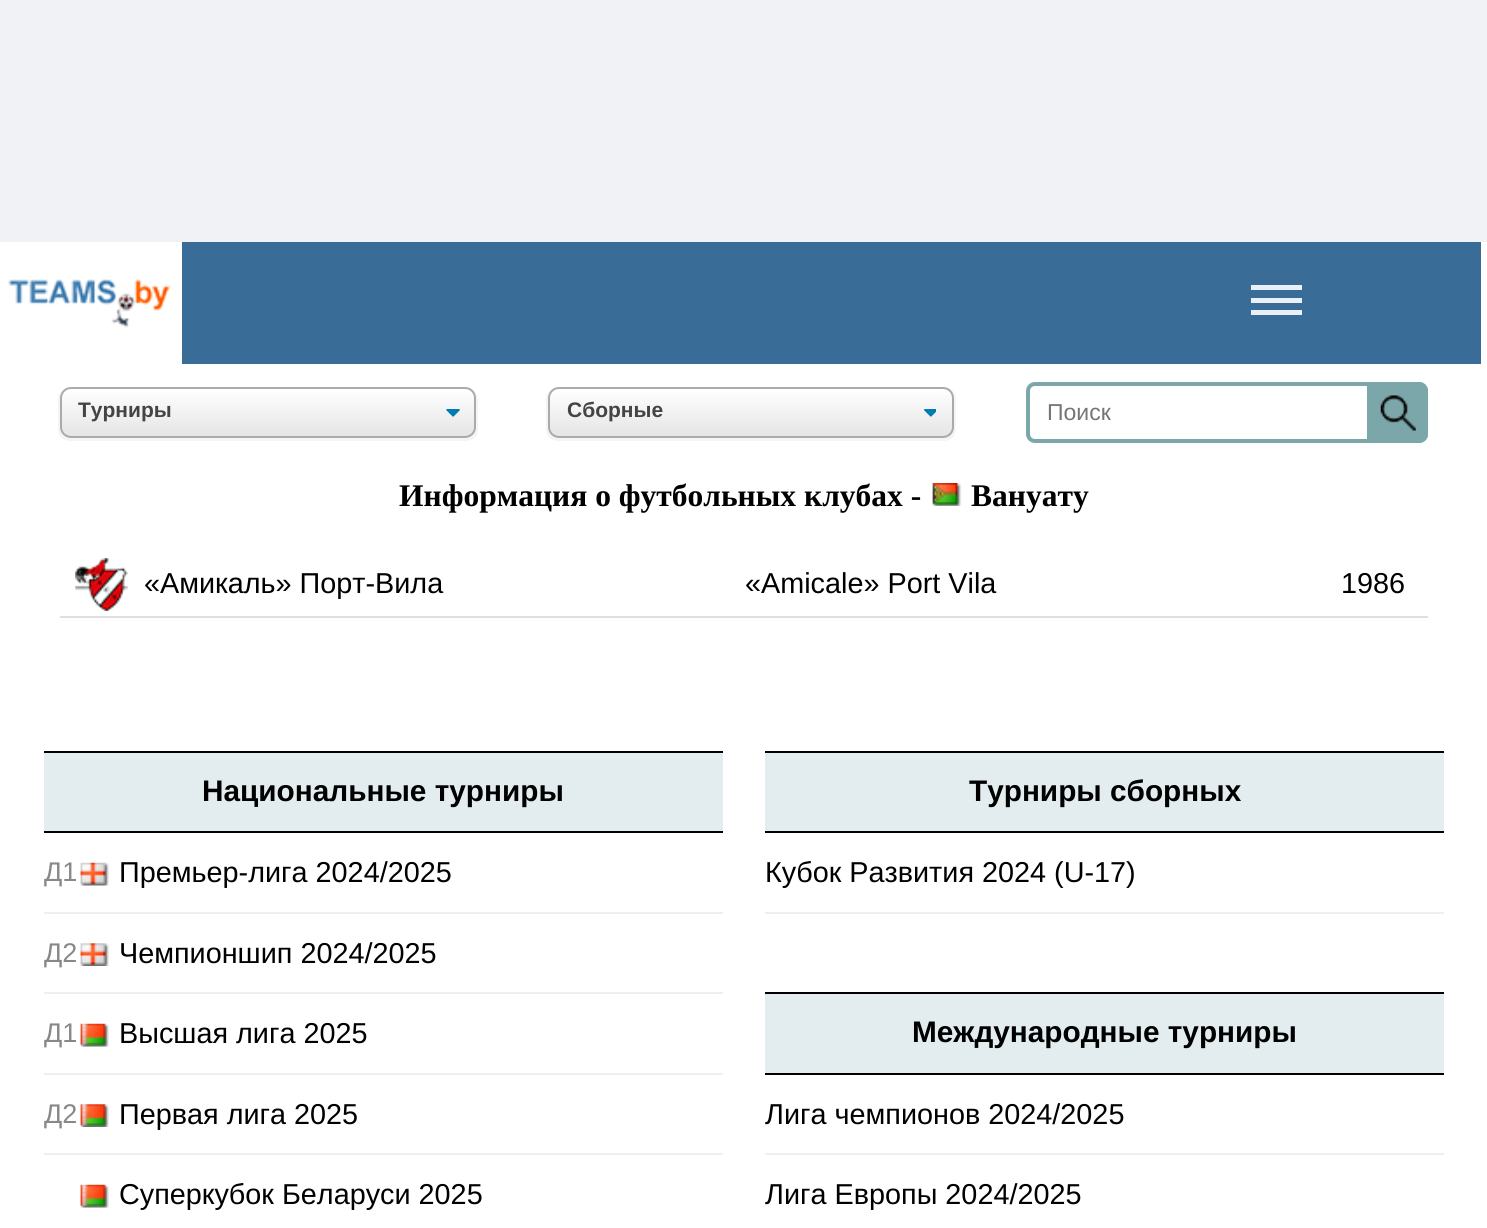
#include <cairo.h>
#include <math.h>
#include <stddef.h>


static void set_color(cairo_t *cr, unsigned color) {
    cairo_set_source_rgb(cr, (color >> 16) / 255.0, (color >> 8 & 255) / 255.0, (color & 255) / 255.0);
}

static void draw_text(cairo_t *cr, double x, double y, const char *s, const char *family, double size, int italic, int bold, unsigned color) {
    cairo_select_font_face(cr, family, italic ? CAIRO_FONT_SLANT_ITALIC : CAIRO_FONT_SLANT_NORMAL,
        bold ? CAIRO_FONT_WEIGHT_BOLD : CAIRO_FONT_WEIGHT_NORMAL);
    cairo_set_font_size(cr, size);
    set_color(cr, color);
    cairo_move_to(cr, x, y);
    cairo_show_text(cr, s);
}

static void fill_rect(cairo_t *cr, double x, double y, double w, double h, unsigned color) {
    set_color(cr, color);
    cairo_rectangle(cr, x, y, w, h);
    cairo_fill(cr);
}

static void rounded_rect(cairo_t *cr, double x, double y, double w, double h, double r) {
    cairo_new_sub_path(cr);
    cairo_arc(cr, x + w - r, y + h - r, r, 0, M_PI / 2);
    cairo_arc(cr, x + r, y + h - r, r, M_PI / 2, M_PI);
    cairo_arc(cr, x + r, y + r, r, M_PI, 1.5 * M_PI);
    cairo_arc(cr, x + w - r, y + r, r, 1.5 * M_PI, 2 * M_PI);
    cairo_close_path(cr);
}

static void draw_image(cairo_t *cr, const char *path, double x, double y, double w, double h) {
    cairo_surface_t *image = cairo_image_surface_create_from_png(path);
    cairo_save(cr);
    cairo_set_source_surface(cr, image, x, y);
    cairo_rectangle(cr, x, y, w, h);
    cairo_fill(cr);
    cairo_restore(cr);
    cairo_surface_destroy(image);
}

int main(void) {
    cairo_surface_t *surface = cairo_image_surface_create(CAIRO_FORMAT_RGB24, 1487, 1228);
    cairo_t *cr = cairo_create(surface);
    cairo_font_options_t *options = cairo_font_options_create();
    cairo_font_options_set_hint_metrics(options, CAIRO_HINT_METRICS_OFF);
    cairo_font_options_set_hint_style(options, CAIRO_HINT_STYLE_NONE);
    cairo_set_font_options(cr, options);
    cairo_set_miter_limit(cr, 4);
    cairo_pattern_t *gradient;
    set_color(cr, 0xF0F2F5);
    cairo_paint(cr);
    fill_rect(cr, 0, 242, 1487, 986, 0xFFFFFF);
    fill_rect(cr, 182, 242, 1299, 122, 0x396C96);
    draw_image(cr, "assets/img1.png", 8, 279, 163, 49);
    fill_rect(cr, 1251, 285, 51, 5, 0xE9F0F7);
    fill_rect(cr, 1251, 298, 51, 5, 0xE9F0F7);
    fill_rect(cr, 1251, 310, 51, 5, 0xE9F0F7);
    set_color(cr, 0xF5F5F5);
    cairo_new_path(cr);
    cairo_move_to(cr, 64, 388);
    cairo_curve_to(cr, 61, 391, 58, 394, 58, 399);
    cairo_line_to(cr, 58, 429);
    cairo_curve_to(cr, 58, 436, 63, 441, 70, 441);
    cairo_line_to(cr, 466, 441);
    cairo_curve_to(cr, 473, 441, 478, 436, 478, 429);
    cairo_line_to(cr, 478, 399);
    cairo_curve_to(cr, 478, 394, 474, 389, 469, 387);
    cairo_curve_to(cr, 473, 389, 476, 393, 476, 397);
    cairo_line_to(cr, 476, 427);
    cairo_curve_to(cr, 476, 433, 471, 438, 466, 438);
    cairo_line_to(cr, 70, 438);
    cairo_curve_to(cr, 64, 438, 60, 433, 60, 427);
    cairo_line_to(cr, 60, 397);
    cairo_curve_to(cr, 60, 394, 61, 390, 64, 388);
    cairo_close_path(cr);
    cairo_fill(cr);
    cairo_save(cr);
    rounded_rect(cr, 60, 387, 416, 51, 11);
    cairo_clip(cr);
    gradient = cairo_pattern_create_linear(268, 389, 268, 436);
    cairo_pattern_add_color_stop_rgba(gradient, 0, 1, 1, 1, 1);
    cairo_pattern_add_color_stop_rgba(gradient, 1, 0.898, 0.898, 0.898, 1);
    cairo_set_source(cr, gradient);
    cairo_pattern_destroy(gradient);
    cairo_rectangle(cr, 60, 389, 416, 47);
    cairo_fill(cr);
    cairo_restore(cr);
    draw_image(cr, "assets/img2.png", 446, 409, 14, 8);
    rounded_rect(cr, 61, 388, 414, 49, 10);
    set_color(cr, 0xAAAAAA);
    cairo_stroke(cr);
    draw_text(cr, 78, 417, "Турниры", "Liberation Sans", 21, 0, 1, 0x444444);
    set_color(cr, 0xF5F5F5);
    cairo_new_path(cr);
    cairo_move_to(cr, 554, 388);
    cairo_curve_to(cr, 549, 390, 546, 394, 546, 399);
    cairo_line_to(cr, 546, 429);
    cairo_curve_to(cr, 546, 436, 551, 441, 558, 441);
    cairo_line_to(cr, 944, 441);
    cairo_curve_to(cr, 951, 441, 956, 436, 956, 429);
    cairo_line_to(cr, 956, 399);
    cairo_curve_to(cr, 956, 393, 952, 388, 946, 387);
    cairo_curve_to(cr, 951, 389, 954, 393, 954, 397);
    cairo_line_to(cr, 954, 427);
    cairo_curve_to(cr, 954, 433, 949, 438, 943, 438);
    cairo_line_to(cr, 558, 438);
    cairo_curve_to(cr, 552, 438, 548, 433, 548, 427);
    cairo_line_to(cr, 548, 397);
    cairo_curve_to(cr, 548, 393, 550, 390, 554, 388);
    cairo_close_path(cr);
    cairo_fill(cr);
    cairo_save(cr);
    rounded_rect(cr, 548, 387, 406, 51, 11);
    cairo_clip(cr);
    gradient = cairo_pattern_create_linear(751, 389, 751, 436);
    cairo_pattern_add_color_stop_rgba(gradient, 0, 1, 1, 1, 1);
    cairo_pattern_add_color_stop_rgba(gradient, 1, 0.898, 0.898, 0.898, 1);
    cairo_set_source(cr, gradient);
    cairo_pattern_destroy(gradient);
    cairo_rectangle(cr, 548, 389, 406, 47);
    cairo_fill(cr);
    cairo_restore(cr);
    draw_image(cr, "assets/img3.png", 924, 409, 12, 8);
    rounded_rect(cr, 549, 388, 404, 49, 10);
    set_color(cr, 0xAAAAAA);
    cairo_stroke(cr);
    draw_text(cr, 567, 417, "Сборные", "Liberation Sans", 21, 0, 1, 0x444444);
    rounded_rect(cr, 1028, 384, 398, 57, 7);
    set_color(cr, 0x7BA7AB);
    cairo_set_line_width(cr, 4);
    cairo_stroke(cr);
    draw_text(cr, 1047, 420, "Поиск", "Liberation Sans", 23, 0, 0, 0x757575);
    set_color(cr, 0x7BA7AB);
    cairo_new_path(cr);
    cairo_move_to(cr, 1367, 382);
    cairo_line_to(cr, 1419, 382);
    cairo_curve_to(cr, 1424, 382, 1428, 386, 1428, 391);
    cairo_line_to(cr, 1428, 434);
    cairo_curve_to(cr, 1428, 439, 1424, 443, 1419, 443);
    cairo_line_to(cr, 1367, 443);
    cairo_close_path(cr);
    cairo_fill(cr);
    draw_image(cr, "assets/img4.png", 1380, 395, 36, 36);
    draw_text(cr, 399, 506, "Информация о футбольных клубах -", "Liberation Serif", 31.5, 0, 1, 0x000000);
    draw_image(cr, "assets/img5.png", 932, 483, 30, 23);
    draw_text(cr, 971, 506, "Вануату", "Liberation Serif", 31.5, 0, 1, 0x000000);
    draw_image(cr, "assets/img6.png", 75, 558, 53, 53);
    draw_text(cr, 144, 593, "«Амикаль» Порт-Вила", "Liberation Sans", 28.8, 0, 0, 0x000000);
    draw_text(cr, 745, 593, "«Amicale» Port Vila", "Liberation Sans", 28.8, 0, 0, 0x000000);
    draw_text(cr, 1341, 593, "1986", "Liberation Sans", 28.8, 0, 0, 0x000000);
    fill_rect(cr, 60, 616, 1368, 2, 0xDFDFDF);
    fill_rect(cr, 44, 751, 679, 2, 0x000000);
    fill_rect(cr, 44, 753, 679, 78, 0xE3EDEF);
    draw_text(cr, 202, 801, "Национальные турниры", "Liberation Sans", 29.75, 0, 1, 0x000000);
    fill_rect(cr, 44, 831, 679, 2, 0x000000);
    draw_text(cr, 44, 881, "Д1", "Liberation Sans", 27, 0, 0, 0x888888);
    draw_image(cr, "assets/img7.png", 80, 862, 29, 24);
    draw_text(cr, 119, 882, "Премьер-лига 2024/2025", "Liberation Sans", 28.8, 0, 0, 0x000000);
    fill_rect(cr, 44, 912, 679, 2, 0xEFEFEF);
    draw_text(cr, 44, 962, "Д2", "Liberation Sans", 27, 0, 0, 0x888888);
    draw_image(cr, "assets/img8.png", 80, 943, 29, 23);
    draw_text(cr, 119, 963, "Чемпионшип 2024/2025", "Liberation Sans", 28.8, 0, 0, 0x000000);
    fill_rect(cr, 44, 992, 679, 2, 0xEFEFEF);
    draw_text(cr, 44, 1042, "Д1", "Liberation Sans", 27, 0, 0, 0x888888);
    draw_image(cr, "assets/img9.png", 80, 1023, 29, 24);
    draw_text(cr, 119, 1043, "Высшая лига 2025", "Liberation Sans", 28.8, 0, 0, 0x000000);
    fill_rect(cr, 44, 1073, 679, 2, 0xEFEFEF);
    draw_text(cr, 44, 1123, "Д2", "Liberation Sans", 27, 0, 0, 0x888888);
    draw_image(cr, "assets/img10.png", 80, 1104, 29, 23);
    draw_text(cr, 119, 1124, "Первая лига 2025", "Liberation Sans", 28.8, 0, 0, 0x000000);
    fill_rect(cr, 44, 1153, 679, 2, 0xEFEFEF);
    draw_image(cr, "assets/img9.png", 80, 1184, 29, 24);
    draw_text(cr, 119, 1204, "Суперкубок Беларуси 2025", "Liberation Sans", 28.8, 0, 0, 0x000000);
    fill_rect(cr, 765, 751, 679, 2, 0x000000);
    fill_rect(cr, 765, 753, 679, 78, 0xE3EDEF);
    draw_text(cr, 969, 801, "Турниры сборных", "Liberation Sans", 29.75, 0, 1, 0x000000);
    fill_rect(cr, 765, 831, 679, 2, 0x000000);
    draw_text(cr, 765, 882, "Кубок Развития 2024 (U-17)", "Liberation Sans", 28.8, 0, 0, 0x000000);
    fill_rect(cr, 765, 912, 679, 2, 0xEFEFEF);
    fill_rect(cr, 765, 992, 679, 2, 0x000000);
    fill_rect(cr, 765, 994, 679, 79, 0xE3EDEF);
    draw_text(cr, 912, 1042, "Международные турниры", "Liberation Sans", 29.75, 0, 1, 0x000000);
    fill_rect(cr, 765, 1073, 679, 2, 0x000000);
    draw_text(cr, 765, 1124, "Лига чемпионов 2024/2025", "Liberation Sans", 28.8, 0, 0, 0x000000);
    fill_rect(cr, 765, 1153, 679, 2, 0xEFEFEF);
    draw_text(cr, 765, 1204, "Лига Европы 2024/2025", "Liberation Sans", 28.8, 0, 0, 0x000000);
    cairo_surface_write_to_png(surface, "output.png");
    cairo_font_options_destroy(options);
    cairo_destroy(cr);
    cairo_surface_destroy(surface);
    return 0;
}
